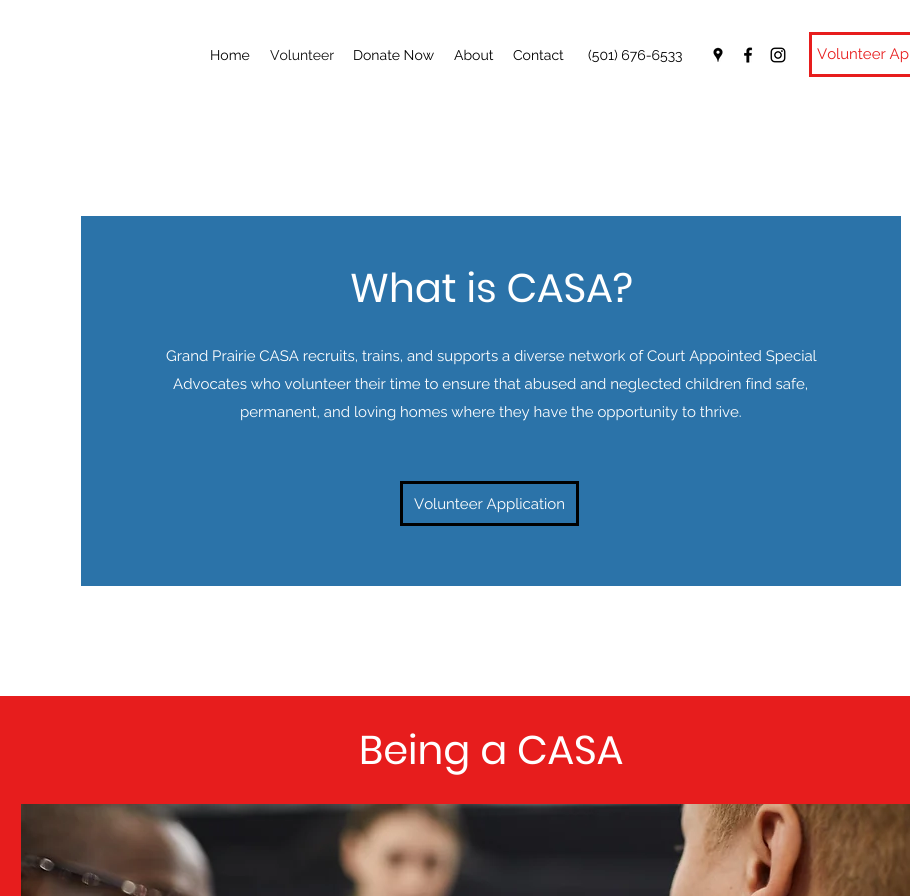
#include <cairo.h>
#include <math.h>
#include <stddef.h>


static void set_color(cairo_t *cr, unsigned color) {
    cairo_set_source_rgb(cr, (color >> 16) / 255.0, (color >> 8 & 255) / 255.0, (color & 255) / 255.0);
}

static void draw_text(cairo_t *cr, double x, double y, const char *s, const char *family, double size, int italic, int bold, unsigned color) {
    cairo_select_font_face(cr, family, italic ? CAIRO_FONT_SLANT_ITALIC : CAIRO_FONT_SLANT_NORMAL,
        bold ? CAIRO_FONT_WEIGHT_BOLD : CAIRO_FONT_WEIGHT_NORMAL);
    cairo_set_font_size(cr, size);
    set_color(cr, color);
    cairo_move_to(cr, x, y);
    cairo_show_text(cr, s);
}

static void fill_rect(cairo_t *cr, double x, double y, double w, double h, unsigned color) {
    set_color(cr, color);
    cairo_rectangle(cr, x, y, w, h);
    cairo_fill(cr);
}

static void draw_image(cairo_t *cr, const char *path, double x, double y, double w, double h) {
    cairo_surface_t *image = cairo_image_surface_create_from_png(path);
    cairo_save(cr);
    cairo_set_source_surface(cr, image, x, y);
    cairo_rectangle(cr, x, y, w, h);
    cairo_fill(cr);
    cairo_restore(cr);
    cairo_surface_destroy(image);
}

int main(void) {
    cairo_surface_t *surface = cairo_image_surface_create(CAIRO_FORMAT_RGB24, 910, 896);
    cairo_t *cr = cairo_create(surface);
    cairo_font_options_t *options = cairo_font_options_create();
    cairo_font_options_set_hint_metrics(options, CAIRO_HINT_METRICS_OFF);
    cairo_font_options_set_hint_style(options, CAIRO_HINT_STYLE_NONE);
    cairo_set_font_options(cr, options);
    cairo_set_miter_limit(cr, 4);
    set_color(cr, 0xFFFFFF);
    cairo_paint(cr);
    draw_text(cr, 210, 60, "Home", "Raleway", 14, 0, 0, 0x000000);
    draw_text(cr, 270, 60, "Volunteer", "Raleway", 14, 0, 0, 0x101010);
    draw_text(cr, 353, 60, "Donate Now", "Raleway", 14, 0, 0, 0x000000);
    draw_text(cr, 454, 60, "About", "Raleway", 14, 0, 0, 0x000000);
    draw_text(cr, 513, 60, "Contact", "Raleway", 14, 0, 0, 0x000000);
    draw_text(cr, 588, 60, "(501) 676-6533", "Raleway", 14, 0, 0, 0x000000);
    draw_image(cr, "assets/img1.png", 713, 47, 10, 15);
    draw_image(cr, "assets/img2.png", 744, 47, 9, 16);
    draw_image(cr, "assets/img3.png", 770, 47, 16, 16);
    cairo_rectangle(cr, 810.5, 33.5, 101, 42);
    set_color(cr, 0xE71D1D);
    cairo_set_line_width(cr, 3);
    cairo_stroke(cr);
    draw_text(cr, 817, 59, "Volunteer Ap", "Raleway", 15, 0, 0, 0xE71D1D);
    fill_rect(cr, 81, 216, 820, 370, 0x2B73A9);
    draw_text(cr, 350, 302, "What is CASA?", "Poppins", 40, 0, 0, 0xFFFFFF);
    draw_text(cr, 166, 361, "Grand Prairie CASA recruits, trains, and supports a diverse network of Court Appointed Special", "Raleway", 15, 0, 0, 0xFFFFFF);
    draw_text(cr, 173, 389, "Advocates who volunteer their time to ensure that abused and neglected children find safe,", "Raleway", 15, 0, 0, 0xFFFFFF);
    draw_text(cr, 240, 417, "permanent, and loving homes where they have the opportunity to thrive.", "Raleway", 15, 0, 0, 0xFFFFFF);
    cairo_rectangle(cr, 401.5, 482.5, 176, 42);
    set_color(cr, 0x000000);
    cairo_stroke(cr);
    draw_text(cr, 414, 509, "Volunteer Application", "Raleway", 15, 0, 0, 0xFFFFFF);
    fill_rect(cr, 0, 696, 910, 200, 0xE71D1D);
    draw_text(cr, 359, 764, "Being a CASA", "Poppins", 40, 0, 0, 0xFFFFFF);
    draw_image(cr, "assets/img4.png", 21, 804, 889, 92);
    cairo_surface_write_to_png(surface, "output.png");
    cairo_font_options_destroy(options);
    cairo_destroy(cr);
    cairo_surface_destroy(surface);
    return 0;
}
